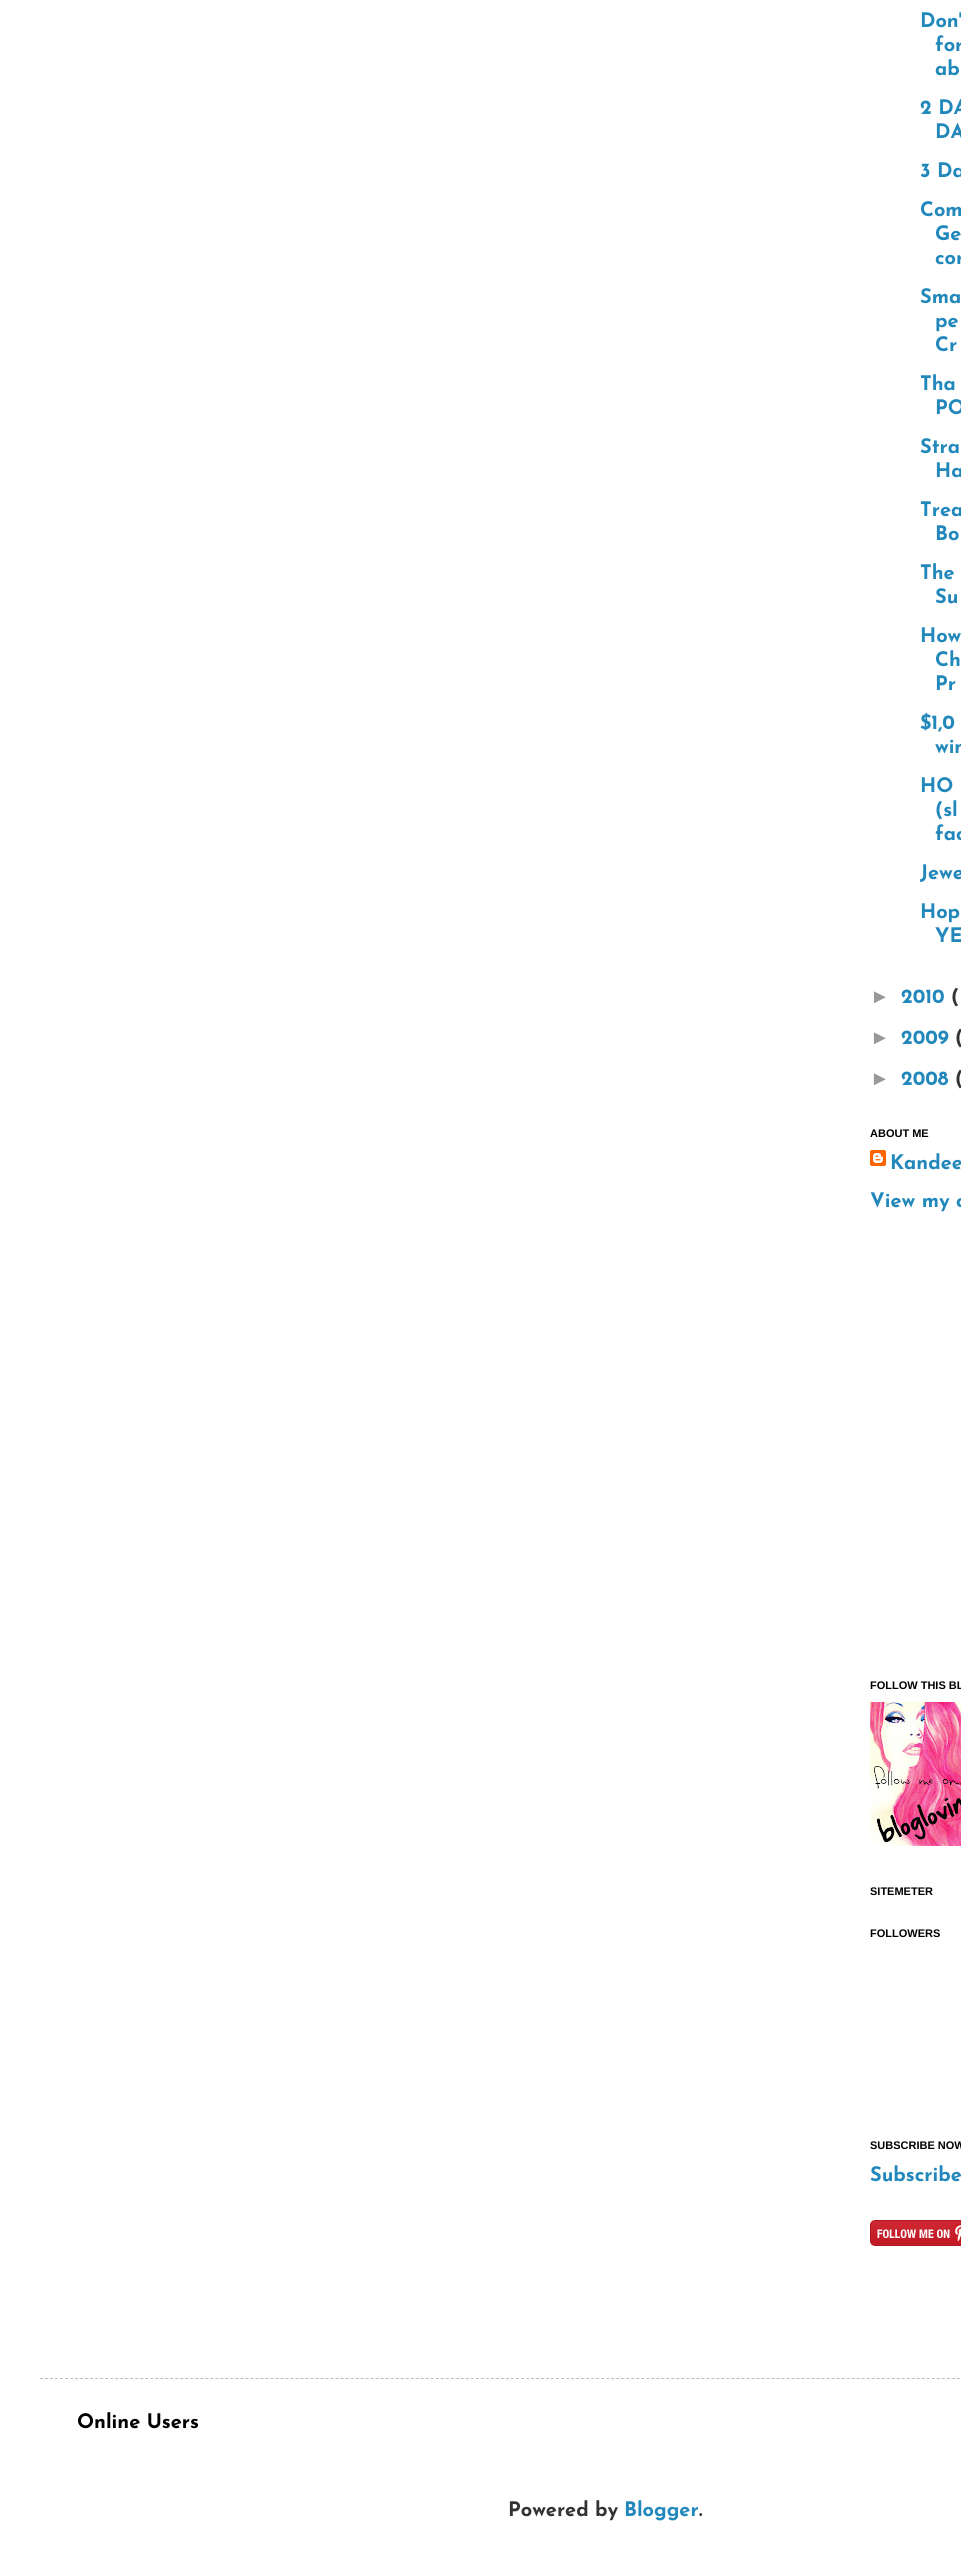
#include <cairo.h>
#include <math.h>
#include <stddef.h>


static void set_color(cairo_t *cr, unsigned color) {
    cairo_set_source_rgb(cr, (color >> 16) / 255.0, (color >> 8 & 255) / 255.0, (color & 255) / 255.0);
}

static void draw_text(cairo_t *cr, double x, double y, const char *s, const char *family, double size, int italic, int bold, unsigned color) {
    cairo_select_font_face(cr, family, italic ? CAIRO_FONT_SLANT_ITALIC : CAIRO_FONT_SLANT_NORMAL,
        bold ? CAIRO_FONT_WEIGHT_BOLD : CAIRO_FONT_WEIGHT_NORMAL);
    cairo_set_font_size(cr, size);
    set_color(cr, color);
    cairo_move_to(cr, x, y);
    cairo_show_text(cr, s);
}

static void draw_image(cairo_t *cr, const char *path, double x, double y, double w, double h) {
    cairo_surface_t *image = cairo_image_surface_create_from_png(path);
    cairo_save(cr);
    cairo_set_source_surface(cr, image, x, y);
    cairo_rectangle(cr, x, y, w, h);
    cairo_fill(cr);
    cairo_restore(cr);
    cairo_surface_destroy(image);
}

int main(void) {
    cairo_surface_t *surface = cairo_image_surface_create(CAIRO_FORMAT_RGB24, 961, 2564);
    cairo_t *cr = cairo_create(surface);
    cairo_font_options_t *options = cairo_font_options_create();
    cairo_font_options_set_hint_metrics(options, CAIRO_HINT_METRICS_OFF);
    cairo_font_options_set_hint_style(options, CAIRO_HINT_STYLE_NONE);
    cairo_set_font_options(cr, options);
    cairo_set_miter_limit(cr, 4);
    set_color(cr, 0xFFFFFF);
    cairo_paint(cr);
    draw_text(cr, 920, 27, "Don'", "Josefin Sans", 20, 0, 1, 0x2288BB);
    draw_text(cr, 935, 51, "for", "Josefin Sans", 20, 0, 1, 0x2288BB);
    draw_text(cr, 935, 75, "ab", "Josefin Sans", 20, 0, 1, 0x2288BB);
    draw_text(cr, 920, 114, "2 DA", "Josefin Sans", 20, 0, 1, 0x2288BB);
    draw_text(cr, 935, 138, "DA", "Josefin Sans", 20, 0, 1, 0x2288BB);
    draw_text(cr, 920, 177, "3 Da", "Josefin Sans", 20, 0, 1, 0x2288BB);
    draw_text(cr, 920, 216, "Com", "Josefin Sans", 20, 0, 1, 0x2288BB);
    draw_text(cr, 935, 240, "Ge", "Josefin Sans", 20, 0, 1, 0x2288BB);
    draw_text(cr, 935, 264, "cor", "Josefin Sans", 20, 0, 1, 0x2288BB);
    draw_text(cr, 920, 303, "Sma", "Josefin Sans", 20, 0, 1, 0x2288BB);
    draw_text(cr, 935, 327, "pe", "Josefin Sans", 20, 0, 1, 0x2288BB);
    draw_text(cr, 935, 351, "Cr", "Josefin Sans", 20, 0, 1, 0x2288BB);
    draw_text(cr, 920, 390, "Tha", "Josefin Sans", 20, 0, 1, 0x2288BB);
    draw_text(cr, 935, 414, "PO", "Josefin Sans", 20, 0, 1, 0x2288BB);
    draw_text(cr, 920, 453, "Stra", "Josefin Sans", 20, 0, 1, 0x2288BB);
    draw_text(cr, 935, 477, "Ha", "Josefin Sans", 20, 0, 1, 0x2288BB);
    draw_text(cr, 920, 516, "Trea", "Josefin Sans", 20, 0, 1, 0x2288BB);
    draw_text(cr, 935, 540, "Bo", "Josefin Sans", 20, 0, 1, 0x2288BB);
    draw_text(cr, 920, 579, "The", "Josefin Sans", 20, 0, 1, 0x2288BB);
    draw_text(cr, 935, 603, "Su", "Josefin Sans", 20, 0, 1, 0x2288BB);
    draw_text(cr, 920, 642, "How", "Josefin Sans", 20, 0, 1, 0x2288BB);
    draw_text(cr, 935, 666, "Ch", "Josefin Sans", 20, 0, 1, 0x2288BB);
    draw_text(cr, 935, 690, "Pr", "Josefin Sans", 20, 0, 1, 0x2288BB);
    draw_text(cr, 920, 729, "$1,0", "Josefin Sans", 20, 0, 1, 0x2288BB);
    draw_text(cr, 935, 753, "win", "Josefin Sans", 20, 0, 1, 0x2288BB);
    draw_text(cr, 920, 792, "HO", "Josefin Sans", 20, 0, 1, 0x2288BB);
    draw_text(cr, 935, 816, "(sl", "Josefin Sans", 20, 0, 1, 0x2288BB);
    draw_text(cr, 935, 840, "fac", "Josefin Sans", 20, 0, 1, 0x2288BB);
    draw_text(cr, 920, 879, "Jewe", "Josefin Sans", 20, 0, 1, 0x2288BB);
    draw_text(cr, 920, 918, "Hop", "Josefin Sans", 20, 0, 1, 0x2288BB);
    draw_text(cr, 935, 942, "YE", "Josefin Sans", 20, 0, 1, 0x2288BB);
    draw_text(cr, 870, 1003, "►", "Liberation Sans", 20, 0, 1, 0x999999);
    draw_text(cr, 901, 1003, "2010", "Josefin Sans", 20, 0, 1, 0x2288BB);
    draw_text(cr, 951, 1003, "(", "Josefin Sans", 20, 0, 1, 0x333333);
    draw_text(cr, 870, 1044, "►", "Liberation Sans", 20, 0, 1, 0x999999);
    draw_text(cr, 901, 1044, "2009", "Josefin Sans", 20, 0, 1, 0x2288BB);
    draw_text(cr, 955, 1044, "(", "Josefin Sans", 20, 0, 1, 0x333333);
    draw_text(cr, 870, 1085, "►", "Liberation Sans", 20, 0, 1, 0x999999);
    draw_text(cr, 901, 1085, "2008", "Josefin Sans", 20, 0, 1, 0x2288BB);
    draw_text(cr, 955, 1085, "(", "Josefin Sans", 20, 0, 1, 0x333333);
    draw_text(cr, 870, 1137, "ABOUT ME", "Liberation Sans", 11, 0, 1, 0x000000);
    draw_image(cr, "assets/img1.png", 870, 1150, 16, 16);
    draw_text(cr, 890, 1169, "Kandee", "Josefin Sans", 20, 0, 1, 0x2288BB);
    draw_text(cr, 870, 1207, "View my c", "Josefin Sans", 20, 0, 1, 0x2288BB);
    draw_text(cr, 870, 1689, "FOLLOW THIS BL", "Liberation Sans", 11, 0, 1, 0x000000);
    draw_image(cr, "assets/img2.png", 870, 1702, 91, 144);
    draw_text(cr, 870, 1895, "SITEMETER", "Liberation Sans", 11, 0, 1, 0x000000);
    draw_text(cr, 870, 1937, "FOLLOWERS", "Liberation Sans", 11, 0, 1, 0x000000);
    draw_text(cr, 870, 2149, "SUBSCRIBE NOW", "Liberation Sans", 11, 0, 1, 0x000000);
    draw_text(cr, 870, 2181, "Subscribe", "Josefin Sans", 20, 0, 1, 0x2288BB);
    draw_image(cr, "assets/img3.png", 870, 2220, 91, 26);
    cairo_new_path(cr);
    cairo_move_to(cr, 40, 2378.5);
    cairo_line_to(cr, 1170, 2378.5);
    set_color(cr, 0xBBBBBB);
    cairo_set_line_width(cr, 1);
    cairo_set_dash(cr, (double[]){3, 2.01}, 2, 0);
    cairo_stroke(cr);
    draw_text(cr, 77, 2428, "Online Users", "Josefin Sans", 20, 0, 1, 0x000000);
    draw_text(cr, 508, 2516, "Powered by", "Josefin Sans", 20, 0, 1, 0x333333);
    draw_text(cr, 624, 2516, "Blogger", "Josefin Sans", 20, 0, 1, 0x2288BB);
    draw_text(cr, 699, 2516, ".", "Josefin Sans", 20, 0, 1, 0x333333);
    cairo_surface_write_to_png(surface, "output.png");
    cairo_font_options_destroy(options);
    cairo_destroy(cr);
    cairo_surface_destroy(surface);
    return 0;
}
